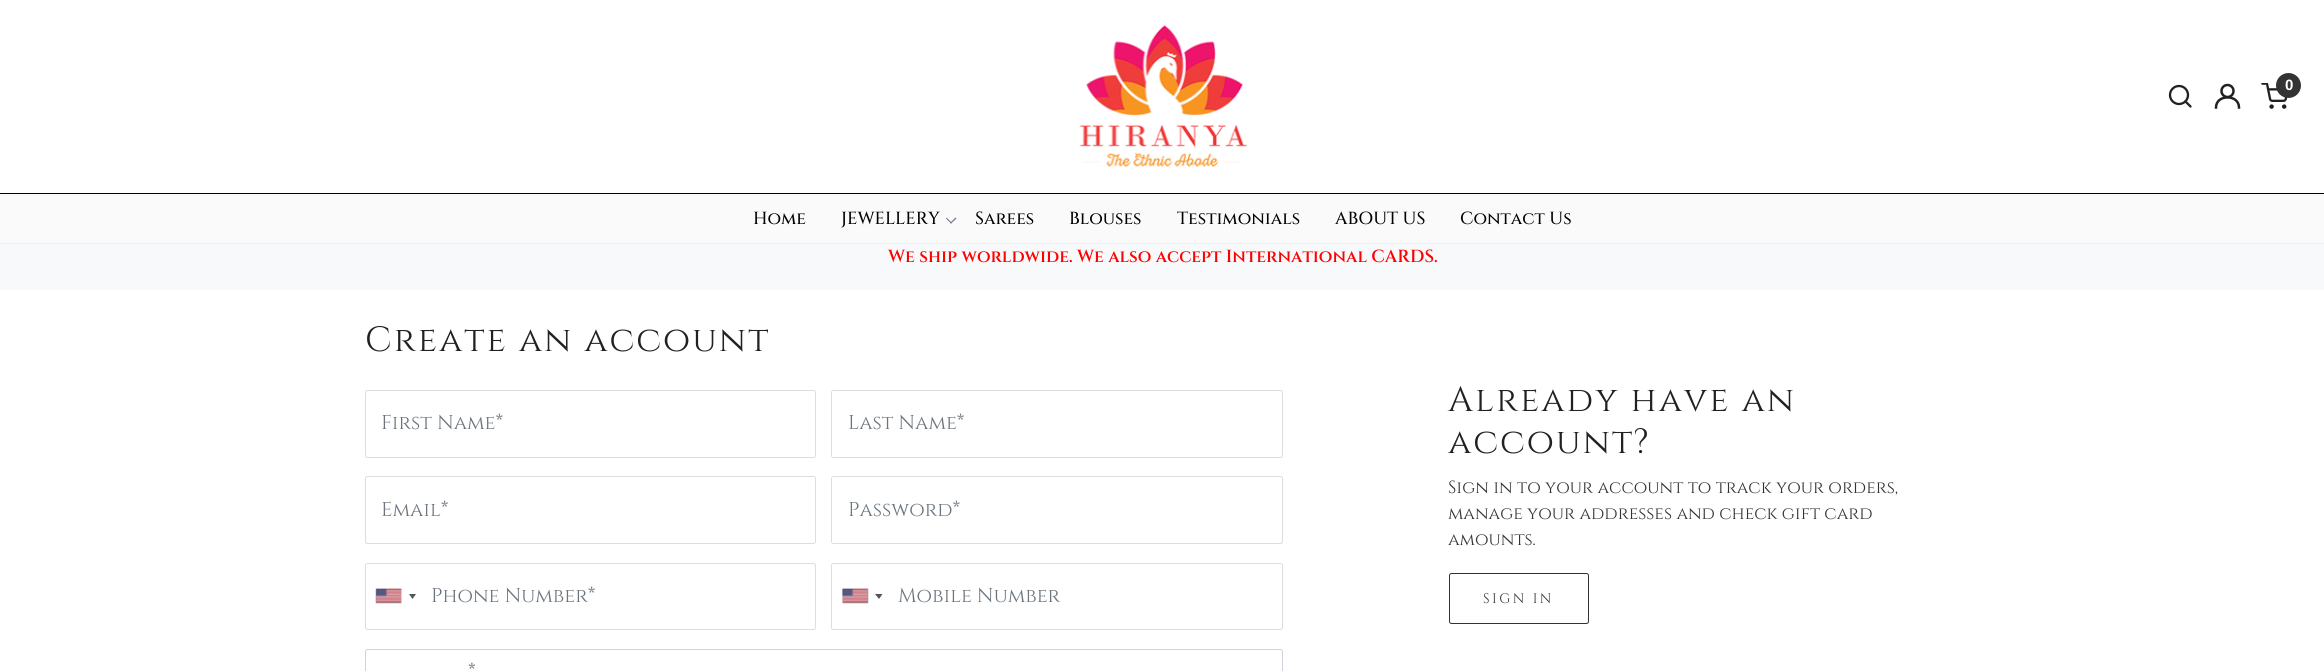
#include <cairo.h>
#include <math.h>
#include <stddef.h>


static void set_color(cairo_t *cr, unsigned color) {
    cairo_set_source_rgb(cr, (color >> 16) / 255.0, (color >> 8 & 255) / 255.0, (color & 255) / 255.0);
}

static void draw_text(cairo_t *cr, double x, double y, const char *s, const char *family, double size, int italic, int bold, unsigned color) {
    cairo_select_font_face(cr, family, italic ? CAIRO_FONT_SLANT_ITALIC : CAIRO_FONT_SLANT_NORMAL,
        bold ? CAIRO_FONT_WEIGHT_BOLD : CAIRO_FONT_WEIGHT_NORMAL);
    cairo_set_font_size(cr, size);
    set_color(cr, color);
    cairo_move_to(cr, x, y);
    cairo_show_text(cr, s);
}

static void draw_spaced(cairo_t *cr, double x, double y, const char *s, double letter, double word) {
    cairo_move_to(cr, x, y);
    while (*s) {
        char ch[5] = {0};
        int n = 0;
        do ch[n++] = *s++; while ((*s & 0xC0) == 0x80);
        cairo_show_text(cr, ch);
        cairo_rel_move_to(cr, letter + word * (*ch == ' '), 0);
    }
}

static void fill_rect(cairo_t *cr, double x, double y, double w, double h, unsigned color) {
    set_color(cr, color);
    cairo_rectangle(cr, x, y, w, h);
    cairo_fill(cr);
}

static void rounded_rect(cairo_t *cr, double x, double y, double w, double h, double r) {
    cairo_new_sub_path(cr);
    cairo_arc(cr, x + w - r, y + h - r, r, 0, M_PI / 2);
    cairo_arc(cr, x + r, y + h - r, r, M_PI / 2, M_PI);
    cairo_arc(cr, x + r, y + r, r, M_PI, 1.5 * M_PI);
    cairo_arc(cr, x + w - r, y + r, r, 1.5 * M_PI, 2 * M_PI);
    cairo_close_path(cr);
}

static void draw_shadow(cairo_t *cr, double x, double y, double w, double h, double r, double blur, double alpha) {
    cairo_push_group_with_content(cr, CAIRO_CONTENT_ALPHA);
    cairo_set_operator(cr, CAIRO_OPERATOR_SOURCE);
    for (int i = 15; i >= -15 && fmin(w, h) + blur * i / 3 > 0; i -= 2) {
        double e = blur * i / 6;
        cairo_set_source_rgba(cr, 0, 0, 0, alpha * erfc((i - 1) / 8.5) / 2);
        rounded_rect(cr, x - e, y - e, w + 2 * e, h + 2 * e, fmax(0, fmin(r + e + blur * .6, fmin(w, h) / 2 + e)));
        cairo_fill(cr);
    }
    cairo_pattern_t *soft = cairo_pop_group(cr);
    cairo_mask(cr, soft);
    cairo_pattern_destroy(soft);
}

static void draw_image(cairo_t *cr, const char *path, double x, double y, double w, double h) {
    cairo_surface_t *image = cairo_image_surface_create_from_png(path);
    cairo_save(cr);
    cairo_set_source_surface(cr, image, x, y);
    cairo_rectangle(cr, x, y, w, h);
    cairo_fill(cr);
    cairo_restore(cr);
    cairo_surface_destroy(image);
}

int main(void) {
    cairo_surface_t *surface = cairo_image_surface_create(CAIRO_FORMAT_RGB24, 2324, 671);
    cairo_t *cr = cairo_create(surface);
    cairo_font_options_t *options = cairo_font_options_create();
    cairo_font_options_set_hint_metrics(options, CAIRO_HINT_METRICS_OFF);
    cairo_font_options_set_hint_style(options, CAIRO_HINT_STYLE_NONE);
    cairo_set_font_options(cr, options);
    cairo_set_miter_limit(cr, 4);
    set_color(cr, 0xFFFFFF);
    cairo_paint(cr);
    fill_rect(cr, 0, 243, 2324, 1, 0xEEEEEE);
    draw_image(cr, "assets/img1.png", 1079, 24, 169, 143);
    cairo_arc(cr, 2179, 95, 9, 0, 2 * M_PI);
    set_color(cr, 0x212121);
    cairo_set_line_width(cr, 2.3);
    cairo_stroke(cr);
    cairo_new_path(cr);
    cairo_move_to(cr, 2190.5, 106.5);
    cairo_line_to(cr, 2185.5, 101.5);
    cairo_set_line_cap(cr, CAIRO_LINE_CAP_ROUND);
    cairo_set_line_join(cr, CAIRO_LINE_JOIN_ROUND);
    cairo_stroke(cr);
    cairo_new_path(cr);
    cairo_move_to(cr, 2216, 107.5);
    cairo_curve_to(cr, 2216, 94, 2239, 94, 2239, 107.5);
    cairo_set_line_width(cr, 2.5);
    cairo_set_line_cap(cr, CAIRO_LINE_CAP_SQUARE);
    cairo_set_line_join(cr, CAIRO_LINE_JOIN_MITER);
    cairo_stroke(cr);
    cairo_arc(cr, 2227.5, 91, 6, 0, 2 * M_PI);
    cairo_set_line_cap(cr, CAIRO_LINE_CAP_BUTT);
    cairo_stroke(cr);
    draw_image(cr, "assets/img2.png", 2261, 83, 27, 26);
    set_color(cr, 0x333333);
    cairo_arc(cr, 2288.5, 85.5, 12.5, 0, 2 * M_PI);
    cairo_fill(cr);
    draw_text(cr, 2285, 90, "0", "Liberation Sans", 15, 0, 1, 0xFFFFFF);
    fill_rect(cr, 0, 194, 2324, 49, 0xFAFAFA);
    fill_rect(cr, 0, 193, 2324, 1, 0x000000);
    draw_text(cr, 753, 224, "Home", "Cinzel Medium", 17.5, 0, 0, 0x000000);
    draw_text(cr, 841, 224, "JEWELLERY", "Cinzel Medium", 17.5, 0, 0, 0x000000);
    set_color(cr, 0x70798B);
    cairo_new_path(cr);
    cairo_move_to(cr, 955.5, 217.5);
    cairo_line_to(cr, 956.5, 218.5);
    cairo_line_to(cr, 951, 223.5);
    cairo_line_to(cr, 950, 223);
    cairo_close_path(cr);
    cairo_fill(cr);
    cairo_new_path(cr);
    cairo_move_to(cr, 946.5, 217.5);
    cairo_line_to(cr, 952, 223);
    cairo_line_to(cr, 951, 223.5);
    cairo_line_to(cr, 946, 218.5);
    cairo_close_path(cr);
    cairo_fill(cr);
    draw_text(cr, 975, 224, "Sarees", "Cinzel Medium", 17.5, 0, 0, 0x000000);
    draw_text(cr, 1069, 224, "Blouses", "Cinzel Medium", 17.5, 0, 0, 0x000000);
    draw_text(cr, 1177, 224, "Testimonials", "Cinzel Medium", 17.5, 0, 0, 0x000000);
    draw_text(cr, 1335, 224, "ABOUT US", "Cinzel Medium", 17.5, 0, 0, 0x000000);
    draw_text(cr, 1460, 224, "Contact Us", "Cinzel Medium", 17.5, 0, 0, 0x000000);
    fill_rect(cr, 0, 244, 2324, 46, 0xF8F9FA);
    draw_text(cr, 888, 262, "We ship worldwide. We also accept International CARDS.", "Cinzel SemiBold", 17.5, 0, 0, 0xFF0000);
    cairo_select_font_face(cr, "Cinzel", CAIRO_FONT_SLANT_NORMAL, CAIRO_FONT_WEIGHT_NORMAL);
    cairo_set_font_size(cr, 35);
    set_color(cr, 0x212121);
    draw_spaced(cr, 365, 351, "Create an account", 2.1, 0);
    rounded_rect(cr, 365.5, 390.5, 450, 67, 2);
    set_color(cr, 0xDDDDDD);
    cairo_set_line_width(cr, 1);
    cairo_stroke(cr);
    draw_text(cr, 381, 429, "First Name*", "Cinzel", 20, 0, 0, 0x6C757D);
    rounded_rect(cr, 831.5, 390.5, 451, 67, 2);
    set_color(cr, 0xDDDDDD);
    cairo_stroke(cr);
    draw_text(cr, 848, 429, "Last Name*", "Cinzel", 20, 0, 0, 0x6C757D);
    rounded_rect(cr, 365.5, 476.5, 450, 67, 2);
    set_color(cr, 0xDDDDDD);
    cairo_stroke(cr);
    draw_text(cr, 381, 516, "Email*", "Cinzel", 20, 0, 0, 0x6C757D);
    rounded_rect(cr, 831.5, 476.5, 451, 67, 2);
    set_color(cr, 0xDDDDDD);
    cairo_stroke(cr);
    draw_text(cr, 848, 516, "Password*", "Cinzel", 20, 0, 0, 0x6C757D);
    rounded_rect(cr, 365.5, 563.5, 450, 66, 2);
    set_color(cr, 0xDDDDDD);
    cairo_stroke(cr);
    set_color(cr, 0x888888);
    draw_shadow(cr, 376, 589, 25, 14, 0, 0.5, 1);
    draw_image(cr, "assets/img3.png", 376, 588, 26, 15);
    set_color(cr, 0x555555);
    cairo_new_path(cr);
    cairo_move_to(cr, 409, 594);
    cairo_line_to(cr, 416, 594);
    cairo_line_to(cr, 412.5, 599);
    cairo_close_path(cr);
    cairo_fill(cr);
    draw_text(cr, 431, 602, "Phone Number*", "Cinzel", 20, 0, 0, 0x6C757D);
    rounded_rect(cr, 831.5, 563.5, 451, 66, 2);
    set_color(cr, 0xDDDDDD);
    cairo_stroke(cr);
    set_color(cr, 0x888888);
    draw_shadow(cr, 843, 589, 25, 14, 0, 0.5, 1);
    draw_image(cr, "assets/img4.png", 842, 588, 26, 15);
    set_color(cr, 0x555555);
    cairo_new_path(cr);
    cairo_move_to(cr, 875, 594);
    cairo_line_to(cr, 882.5, 594);
    cairo_line_to(cr, 879, 599);
    cairo_close_path(cr);
    cairo_fill(cr);
    draw_text(cr, 898, 602, "Mobile Number", "Cinzel", 20, 0, 0, 0x6C757D);
    rounded_rect(cr, 365.5, 649.5, 917, 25, 2);
    set_color(cr, 0xCED4DA);
    cairo_stroke(cr);
    draw_text(cr, 468, 678, "*", "Cinzel", 20, 0, 0, 0x6C757D);
    cairo_set_font_size(cr, 35);
    set_color(cr, 0x212121);
    draw_spaced(cr, 1448, 411, "Already have an", 2.1, 0);
    draw_spaced(cr, 1448, 453, "account?", 2.1, 0);
    draw_text(cr, 1448, 493, "Sign in to your account to track your orders,", "Cinzel", 17.5, 0, 0, 0x333333);
    draw_text(cr, 1448, 519, "manage your addresses and check gift card", "Cinzel", 17.5, 0, 0, 0x333333);
    draw_text(cr, 1448, 545, "amounts.", "Cinzel", 17.5, 0, 0, 0x333333);
    rounded_rect(cr, 1449.5, 573.5, 139, 50, 2);
    set_color(cr, 0x323232);
    cairo_stroke(cr);
    cairo_set_font_size(cr, 13.75);
    set_color(cr, 0x333333);
    draw_spaced(cr, 1483, 603, "SIGN IN", 2.5, 0);
    cairo_surface_write_to_png(surface, "output.png");
    cairo_font_options_destroy(options);
    cairo_destroy(cr);
    cairo_surface_destroy(surface);
    return 0;
}
